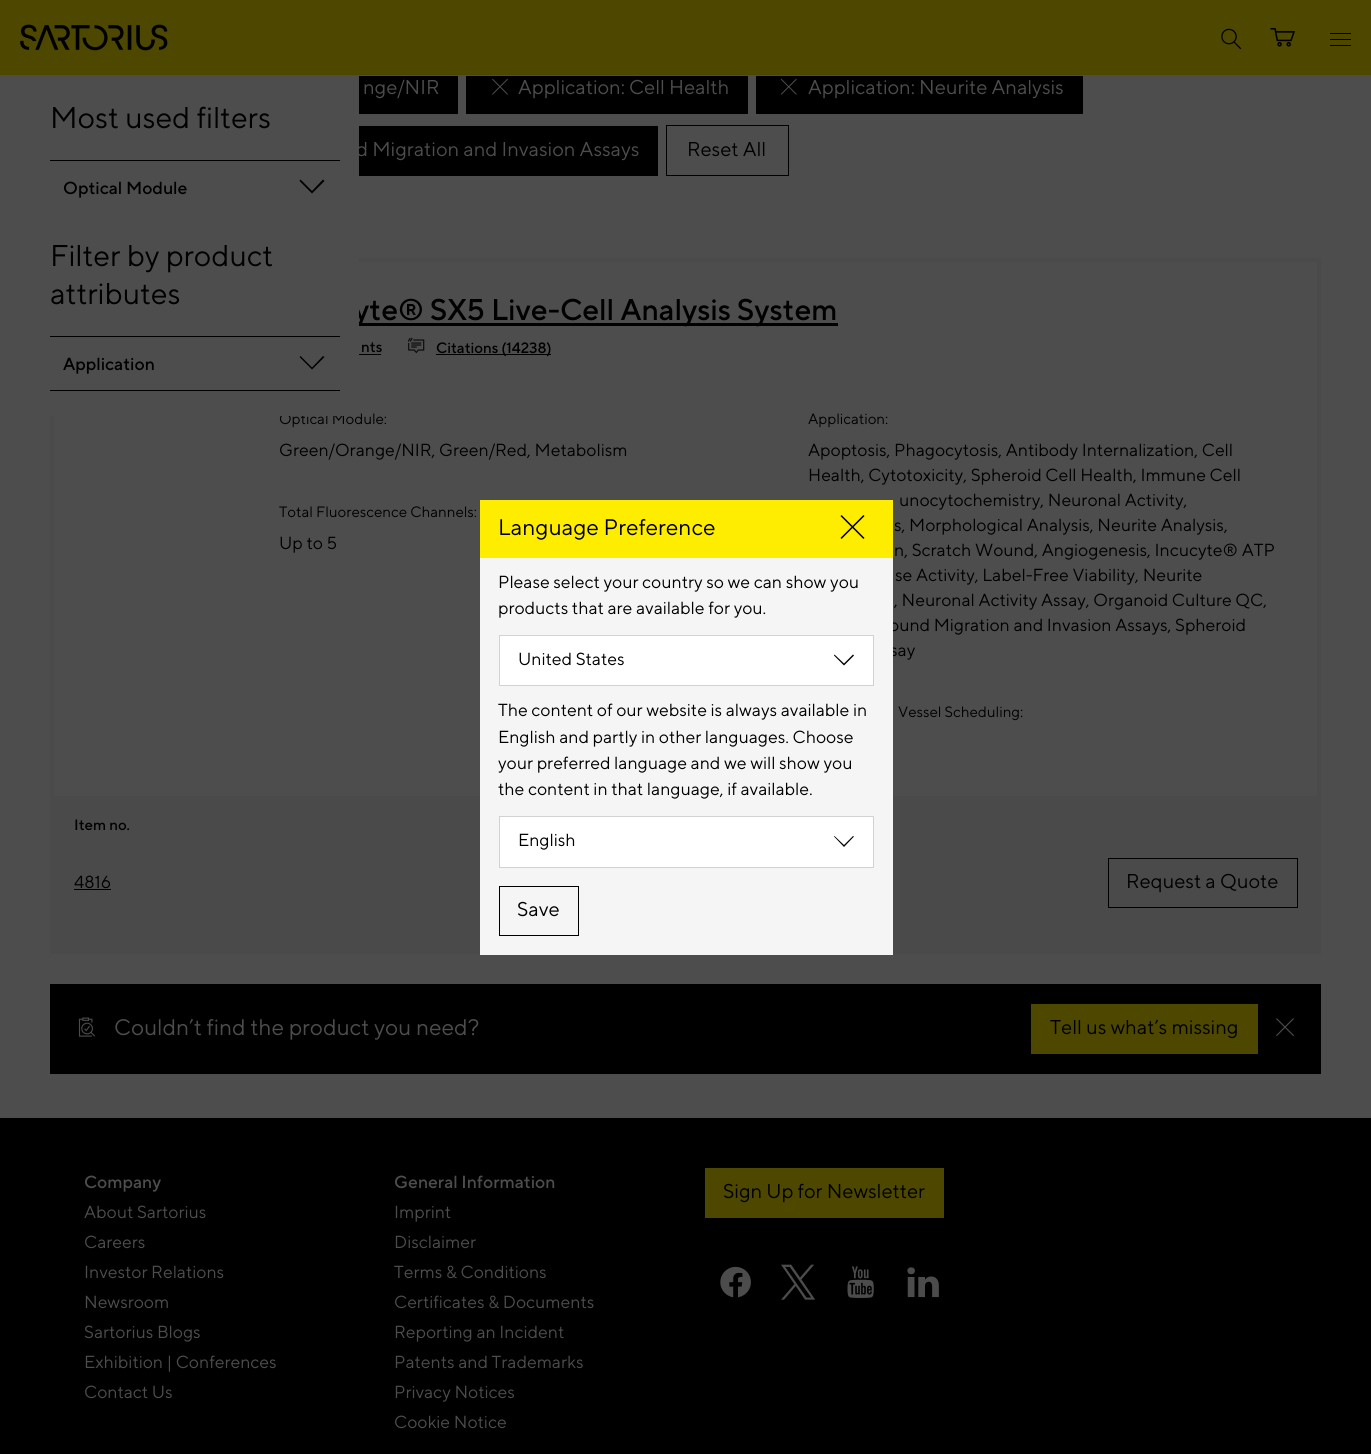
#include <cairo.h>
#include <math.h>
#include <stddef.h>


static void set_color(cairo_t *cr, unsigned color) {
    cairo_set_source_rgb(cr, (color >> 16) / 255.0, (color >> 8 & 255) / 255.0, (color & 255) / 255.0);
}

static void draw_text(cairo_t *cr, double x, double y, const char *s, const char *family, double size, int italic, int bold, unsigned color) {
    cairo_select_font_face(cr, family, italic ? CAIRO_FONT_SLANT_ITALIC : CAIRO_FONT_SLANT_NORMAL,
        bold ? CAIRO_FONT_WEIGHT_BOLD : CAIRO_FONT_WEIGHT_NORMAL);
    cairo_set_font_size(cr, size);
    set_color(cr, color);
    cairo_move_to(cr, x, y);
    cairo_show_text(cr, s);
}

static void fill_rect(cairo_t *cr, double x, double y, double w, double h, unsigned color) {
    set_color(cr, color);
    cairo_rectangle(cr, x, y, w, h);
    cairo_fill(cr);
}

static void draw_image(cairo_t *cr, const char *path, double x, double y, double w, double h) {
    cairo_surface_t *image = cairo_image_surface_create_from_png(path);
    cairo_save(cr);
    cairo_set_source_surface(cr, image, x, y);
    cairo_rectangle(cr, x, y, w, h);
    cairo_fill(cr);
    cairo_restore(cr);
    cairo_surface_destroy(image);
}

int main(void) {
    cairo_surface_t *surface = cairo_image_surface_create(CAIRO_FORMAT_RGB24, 1371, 1454);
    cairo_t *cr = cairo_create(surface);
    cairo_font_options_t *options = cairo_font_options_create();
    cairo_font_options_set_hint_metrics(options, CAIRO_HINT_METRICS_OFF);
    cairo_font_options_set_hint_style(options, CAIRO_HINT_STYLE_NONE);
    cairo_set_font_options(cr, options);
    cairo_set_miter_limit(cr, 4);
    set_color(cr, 0x000000);
    cairo_paint(cr);
    fill_rect(cr, 0, 0, 1371, 75, 0x4D4700);
    draw_image(cr, "assets/img1.png", 20, 24, 148, 27);
    draw_image(cr, "assets/img2.png", 1221, 28, 21, 22);
    cairo_rectangle(cr, -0.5, -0.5, 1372, 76);
    set_color(cr, 0x4D4D4D);
    cairo_set_line_width(cr, 1);
    cairo_stroke(cr);
    draw_image(cr, "assets/img3.png", 1270, 28, 25, 19);
    fill_rect(cr, 1330, 33, 21, 1, 0x000000);
    fill_rect(cr, 1330, 39, 21, 1, 0x000000);
    fill_rect(cr, 1330, 45, 21, 1, 0x000000);
    fill_rect(cr, 0, 76, 1371, 1042, 0x4D4D4D);
    fill_rect(cr, 359, 76, 99, 38, 0x000000);
    draw_text(cr, 363, 94, "nge/NIR", "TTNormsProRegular", 20, 0, 0, 0x4D4D4D);
    fill_rect(cr, 466, 76, 282, 38, 0x000000);
    draw_image(cr, "assets/img4.png", 492, 78, 16, 17);
    draw_text(cr, 518, 94, "Application: Cell Health", "TTNormsProRegular", 20, 0, 0, 0x4D4D4D);
    fill_rect(cr, 756, 76, 327, 38, 0x000000);
    draw_image(cr, "assets/img5.png", 780, 78, 17, 17);
    draw_text(cr, 808, 94, "Application: Neurite Analysis", "TTNormsProRegular", 20, 0, 0, 0x4D4D4D);
    fill_rect(cr, 359, 126, 299, 50, 0x000000);
    draw_text(cr, 356, 156, "d Migration and Invasion Assays", "TTNormsProRegular", 20, 0, 0, 0x4D4D4D);
    cairo_rectangle(cr, 666.5, 125.5, 122, 50);
    set_color(cr, 0x000000);
    cairo_stroke(cr);
    draw_text(cr, 687, 156, "Reset All", "TTNormsProRegular", 20, 0, 0, 0x000000);
    cairo_rectangle(cr, 52, 260, 1267, 692);
    set_color(cr, 0x4A4A4A);
    cairo_set_line_width(cr, 4);
    cairo_stroke(cr);
    fill_rect(cr, 359, 323, 479, 3, 0x000000);
    draw_text(cr, 354, 320, "yte® SX5 Live-Cell Analysis System", "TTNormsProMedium", 30, 0, 0, 0x000000);
    draw_text(cr, 361, 352, "nts", "TTNormsProMedium", 15, 0, 0, 0x000000);
    fill_rect(cr, 359, 354, 22, 1, 0x000000);
    draw_image(cr, "assets/img6.png", 407, 337, 18, 17);
    fill_rect(cr, 436, 354, 115, 1, 0x000000);
    draw_text(cr, 436, 353, "Citations (14238)", "TTNormsProMedium", 15, 0, 0, 0x000000);
    draw_text(cr, 279, 424, "Optical Module:", "TTNormsProRegular", 15, 0, 0, 0x000000);
    draw_text(cr, 279, 456, "Green/Orange/NIR, Green/Red, Metabolism", "TTNormsProRegular", 17.5, 0, 0, 0x000000);
    draw_text(cr, 279, 517, "Total Fluorescence Channels:", "TTNormsProRegular", 15, 0, 0, 0x000000);
    draw_text(cr, 279, 549, "Up to 5", "TTNormsProRegular", 17.5, 0, 0, 0x000000);
    draw_text(cr, 808, 424, "Application:", "TTNormsProRegular", 15, 0, 0, 0x000000);
    draw_text(cr, 808, 456, "Apoptosis, Phagocytosis, Antibody Internalization, Cell", "TTNormsProRegular", 17.5, 0, 0, 0x000000);
    draw_text(cr, 808, 481, "Health, Cytotoxicity, Spheroid Cell Health, Immune Cell", "TTNormsProRegular", 17.5, 0, 0, 0x000000);
    draw_text(cr, 899, 506, "unocytochemistry, Neuronal Activity,", "TTNormsProRegular", 17.5, 0, 0, 0x000000);
    draw_text(cr, 894, 531, "s, Morphological Analysis, Neurite Analysis,", "TTNormsProRegular", 17.5, 0, 0, 0x000000);
    draw_text(cr, 894, 556, "n, Scratch Wound, Angiogenesis, Incucyte® ATP", "TTNormsProRegular", 17.5, 0, 0, 0x000000);
    draw_text(cr, 895, 581, "se Activity, Label-Free Viability, Neurite", "TTNormsProRegular", 17.5, 0, 0, 0x000000);
    draw_text(cr, 894, 606, ", Neuronal Activity Assay, Organoid Culture QC,", "TTNormsProRegular", 17.5, 0, 0, 0x000000);
    draw_text(cr, 889, 631, "ound Migration and Invasion Assays, Spheroid", "TTNormsProRegular", 17.5, 0, 0, 0x000000);
    draw_text(cr, 890, 656, "say", "TTNormsProRegular", 17.5, 0, 0, 0x000000);
    draw_text(cr, 898, 717, "Vessel Scheduling:", "TTNormsProRegular", 15, 0, 0, 0x000000);
    fill_rect(cr, 54, 796, 1263, 154, 0x4A4A4A);
    draw_text(cr, 74, 830, "Item no.", "TTNormsProMedium", 15, 0, 0, 0x000000);
    draw_text(cr, 74, 888, "4816", "TTNormsProRegular", 17.5, 0, 0, 0x000000);
    fill_rect(cr, 74, 889, 37, 1, 0x000000);
    cairo_rectangle(cr, 1108.5, 858.5, 189, 49);
    cairo_set_line_width(cr, 1);
    cairo_stroke(cr);
    draw_text(cr, 1126, 888, "Request a Quote", "TTNormsProRegular", 20, 0, 0, 0x000000);
    fill_rect(cr, 50, 984, 1271, 90, 0x000000);
    draw_image(cr, "assets/img7.png", 78, 1017, 17, 20);
    draw_text(cr, 114, 1035, "Couldn’t find the product you need?", "TTNormsProRegular", 22.5, 0, 0, 0x4D4D4D);
    fill_rect(cr, 1031, 1004, 227, 50, 0x4D4700);
    draw_text(cr, 1050, 1034, "Tell us what’s missing", "TTNormsProRegular", 20, 0, 0, 0x000000);
    draw_image(cr, "assets/img8.png", 1276, 1018, 18, 18);
    fill_rect(cr, 50, 258, 309, 158, 0x4D4D4D);
    draw_text(cr, 50, 128, "Most used filters", "TTNormsProRegular", 30, 0, 0, 0x000000);
    fill_rect(cr, 50, 160, 290, 1, 0x000000);
    draw_text(cr, 63, 194, "Optical Module", "TTNormsProMedium", 17.5, 0, 0, 0x000000);
    cairo_new_path(cr);
    cairo_move_to(cr, 312, 193.5);
    cairo_line_to(cr, 299.5, 181);
    cairo_line_to(cr, 300.5, 179.5);
    cairo_line_to(cr, 312, 191);
    cairo_line_to(cr, 323, 179.5);
    cairo_line_to(cr, 324.5, 181);
    cairo_close_path(cr);
    cairo_fill(cr);
    draw_text(cr, 50, 266, "Filter by product", "TTNormsProRegular", 30, 0, 0, 0x000000);
    draw_text(cr, 50, 304, "attributes", "TTNormsProRegular", 30, 0, 0, 0x000000);
    fill_rect(cr, 50, 390, 290, 1, 0x000000);
    fill_rect(cr, 50, 336, 290, 1, 0x000000);
    draw_text(cr, 63, 370, "Application", "TTNormsProMedium", 17.5, 0, 0, 0x000000);
    cairo_new_path(cr);
    cairo_move_to(cr, 312, 369.5);
    cairo_line_to(cr, 299.5, 357);
    cairo_line_to(cr, 300.5, 356);
    cairo_line_to(cr, 312, 367.5);
    cairo_line_to(cr, 323, 356);
    cairo_line_to(cr, 324.5, 357);
    cairo_close_path(cr);
    cairo_fill(cr);
    fill_rect(cr, 480, 558, 413, 397, 0xF5F5F5);
    fill_rect(cr, 480, 500, 413, 58, 0xFFED00);
    draw_text(cr, 498, 535, "Language Preference", "TTNormsProRegular", 22.5, 0, 0, 0x000000);
    draw_image(cr, "assets/img9.png", 840, 515, 25, 24);
    draw_text(cr, 498, 588, "Please select your country so we can show you", "TTNormsProRegular", 17.5, 0, 0, 0x000000);
    draw_text(cr, 498, 614, "products that are available for you.", "TTNormsProRegular", 17.5, 0, 0, 0x000000);
    set_color(cr, 0xFFFFFF);
    cairo_rectangle(cr, 499.5, 635.5, 374, 50);
    cairo_fill_preserve(cr);
    set_color(cr, 0xD2D2D2);
    cairo_stroke(cr);
    draw_text(cr, 518, 665, "United States", "TTNormsProRegular", 17.5, 0, 0, 0x000000);
    cairo_new_path(cr);
    cairo_move_to(cr, 844, 665.5);
    cairo_line_to(cr, 834, 655.5);
    cairo_line_to(cr, 834.5, 654.5);
    cairo_line_to(cr, 844, 663.5);
    cairo_line_to(cr, 853, 654.5);
    cairo_line_to(cr, 854, 655.5);
    cairo_close_path(cr);
    cairo_fill(cr);
    draw_text(cr, 498, 716, "The content of our website is always available in", "TTNormsProRegular", 17.5, 0, 0, 0x000000);
    draw_text(cr, 498, 743, "English and partly in other languages. Choose", "TTNormsProRegular", 17.5, 0, 0, 0x000000);
    draw_text(cr, 498, 769, "your preferred language and we will show you", "TTNormsProRegular", 17.5, 0, 0, 0x000000);
    draw_text(cr, 498, 795, "the content in that language, if available.", "TTNormsProRegular", 17.5, 0, 0, 0x000000);
    set_color(cr, 0xFFFFFF);
    cairo_rectangle(cr, 499.5, 816.5, 374, 51);
    cairo_fill_preserve(cr);
    set_color(cr, 0xD2D2D2);
    cairo_stroke(cr);
    draw_text(cr, 518, 846, "English", "TTNormsProRegular", 17.5, 0, 0, 0x000000);
    cairo_new_path(cr);
    cairo_move_to(cr, 844, 847);
    cairo_line_to(cr, 834, 836.5);
    cairo_line_to(cr, 834.5, 836);
    cairo_line_to(cr, 844, 845);
    cairo_line_to(cr, 853, 836);
    cairo_line_to(cr, 854, 836.5);
    cairo_close_path(cr);
    cairo_fill(cr);
    cairo_rectangle(cr, 499.5, 886.5, 79, 49);
    cairo_stroke(cr);
    draw_text(cr, 517, 916, "Save", "TTNormsProRegular", 20, 0, 0, 0x000000);
    draw_text(cr, 84, 1188, "Company", "TTNormsProMedium", 17.5, 0, 0, 0x4D4D4D);
    draw_text(cr, 84, 1218, "About Sartorius", "TTNormsProRegular", 17.5, 0, 0, 0x4D4D4D);
    draw_text(cr, 84, 1248, "Careers", "TTNormsProRegular", 17.5, 0, 0, 0x4D4D4D);
    draw_text(cr, 84, 1278, "Investor Relations", "TTNormsProRegular", 17.5, 0, 0, 0x4D4D4D);
    draw_text(cr, 84, 1308, "Newsroom", "TTNormsProRegular", 17.5, 0, 0, 0x4D4D4D);
    draw_text(cr, 84, 1338, "Sartorius Blogs", "TTNormsProRegular", 17.5, 0, 0, 0x4D4D4D);
    draw_text(cr, 84, 1368, "Exhibition | Conferences", "TTNormsProRegular", 17.5, 0, 0, 0x4D4D4D);
    draw_text(cr, 84, 1398, "Contact Us", "TTNormsProRegular", 17.5, 0, 0, 0x4D4D4D);
    draw_text(cr, 394, 1188, "General Information", "TTNormsProMedium", 17.5, 0, 0, 0x4D4D4D);
    draw_text(cr, 394, 1218, "Imprint", "TTNormsProRegular", 17.5, 0, 0, 0x4D4D4D);
    draw_text(cr, 394, 1248, "Disclaimer", "TTNormsProRegular", 17.5, 0, 0, 0x4D4D4D);
    draw_text(cr, 394, 1278, "Terms & Conditions", "TTNormsProRegular", 17.5, 0, 0, 0x4D4D4D);
    draw_text(cr, 394, 1308, "Certificates & Documents", "TTNormsProRegular", 17.5, 0, 0, 0x4D4D4D);
    draw_text(cr, 394, 1338, "Reporting an Incident", "TTNormsProRegular", 17.5, 0, 0, 0x4D4D4D);
    draw_text(cr, 394, 1368, "Patents and Trademarks", "TTNormsProRegular", 17.5, 0, 0, 0x4D4D4D);
    draw_text(cr, 394, 1398, "Privacy Notices", "TTNormsProRegular", 17.5, 0, 0, 0x4D4D4D);
    draw_text(cr, 394, 1428, "Cookie Notice", "TTNormsProRegular", 17.5, 0, 0, 0x4D4D4D);
    fill_rect(cr, 705, 1168, 239, 50, 0x4D4700);
    draw_text(cr, 723, 1198, "Sign Up for Newsletter", "TTNormsProRegular", 20, 0, 0, 0x000000);
    draw_image(cr, "assets/img10.png", 720, 1266, 31, 32);
    draw_image(cr, "assets/img11.png", 781, 1264, 35, 36);
    draw_image(cr, "assets/img12.png", 847, 1266, 27, 32);
    draw_image(cr, "assets/img13.png", 907, 1267, 32, 31);
    cairo_surface_write_to_png(surface, "output.png");
    cairo_font_options_destroy(options);
    cairo_destroy(cr);
    cairo_surface_destroy(surface);
    return 0;
}
